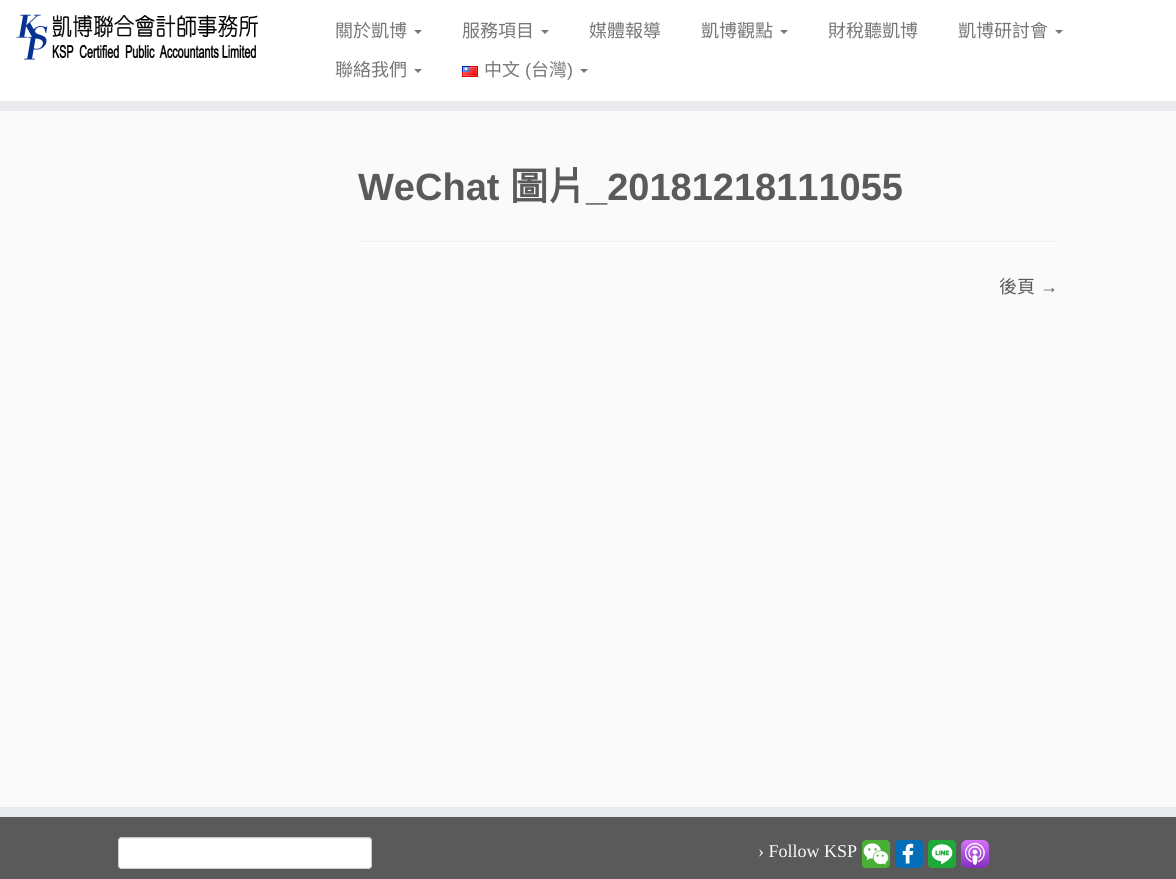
#include <cairo.h>
#include <math.h>
#include <stddef.h>


static void set_color(cairo_t *cr, unsigned color) {
    cairo_set_source_rgb(cr, (color >> 16) / 255.0, (color >> 8 & 255) / 255.0, (color & 255) / 255.0);
}

static void draw_text(cairo_t *cr, double x, double y, const char *s, const char *family, double size, int italic, int bold, unsigned color) {
    cairo_select_font_face(cr, family, italic ? CAIRO_FONT_SLANT_ITALIC : CAIRO_FONT_SLANT_NORMAL,
        bold ? CAIRO_FONT_WEIGHT_BOLD : CAIRO_FONT_WEIGHT_NORMAL);
    cairo_set_font_size(cr, size);
    set_color(cr, color);
    cairo_move_to(cr, x, y);
    cairo_show_text(cr, s);
}

static void fill_rect(cairo_t *cr, double x, double y, double w, double h, unsigned color) {
    set_color(cr, color);
    cairo_rectangle(cr, x, y, w, h);
    cairo_fill(cr);
}

static void rounded_rect(cairo_t *cr, double x, double y, double w, double h, double r) {
    cairo_new_sub_path(cr);
    cairo_arc(cr, x + w - r, y + h - r, r, 0, M_PI / 2);
    cairo_arc(cr, x + r, y + h - r, r, M_PI / 2, M_PI);
    cairo_arc(cr, x + r, y + r, r, M_PI, 1.5 * M_PI);
    cairo_arc(cr, x + w - r, y + r, r, 1.5 * M_PI, 2 * M_PI);
    cairo_close_path(cr);
}

static void draw_image(cairo_t *cr, const char *path, double x, double y, double w, double h) {
    cairo_surface_t *image = cairo_image_surface_create_from_png(path);
    cairo_save(cr);
    cairo_set_source_surface(cr, image, x, y);
    cairo_rectangle(cr, x, y, w, h);
    cairo_fill(cr);
    cairo_restore(cr);
    cairo_surface_destroy(image);
}

int main(void) {
    cairo_surface_t *surface = cairo_image_surface_create(CAIRO_FORMAT_RGB24, 1176, 879);
    cairo_t *cr = cairo_create(surface);
    cairo_font_options_t *options = cairo_font_options_create();
    cairo_font_options_set_hint_metrics(options, CAIRO_HINT_METRICS_OFF);
    cairo_font_options_set_hint_style(options, CAIRO_HINT_STYLE_NONE);
    cairo_set_font_options(cr, options);
    cairo_set_miter_limit(cr, 4);
    set_color(cr, 0xFAFAFA);
    cairo_paint(cr);
    fill_rect(cr, 0, 0, 1176, 101, 0xFFFFFF);
    fill_rect(cr, 0, 101, 1176, 10, 0xE9EAEE);
    draw_image(cr, "assets/img1.png", 16, 14, 242, 46);
    draw_text(cr, 335, 37, "關於凱博", "Noto Sans CJK TC", 18, 0, 0, 0x777777);
    cairo_new_path(cr);
    cairo_move_to(cr, 414, 30);
    cairo_line_to(cr, 422, 30);
    cairo_line_to(cr, 418, 34);
    cairo_close_path(cr);
    cairo_fill(cr);
    draw_text(cr, 462, 37, "服務項目", "Noto Sans CJK TC", 18, 0, 0, 0x777777);
    cairo_new_path(cr);
    cairo_move_to(cr, 541, 30);
    cairo_line_to(cr, 549, 30);
    cairo_line_to(cr, 545, 34);
    cairo_close_path(cr);
    cairo_fill(cr);
    draw_text(cr, 589, 37, "媒體報導", "Noto Sans CJK TC", 18, 0, 0, 0x777777);
    draw_text(cr, 701, 37, "凱博觀點", "Noto Sans CJK TC", 18, 0, 0, 0x777777);
    cairo_new_path(cr);
    cairo_move_to(cr, 780, 30);
    cairo_line_to(cr, 788, 30);
    cairo_line_to(cr, 784, 34);
    cairo_close_path(cr);
    cairo_fill(cr);
    draw_text(cr, 828, 37, "財稅聽凱博", "Noto Sans CJK TC", 18, 0, 0, 0x777777);
    draw_text(cr, 958, 37, "凱博研討會", "Noto Sans CJK TC", 18, 0, 0, 0x777777);
    cairo_new_path(cr);
    cairo_move_to(cr, 1055, 30);
    cairo_line_to(cr, 1063, 30);
    cairo_line_to(cr, 1059, 34);
    cairo_close_path(cr);
    cairo_fill(cr);
    draw_text(cr, 335, 76, "聯絡我們", "Noto Sans CJK TC", 18, 0, 0, 0x777777);
    cairo_new_path(cr);
    cairo_move_to(cr, 414, 69);
    cairo_line_to(cr, 422, 69);
    cairo_line_to(cr, 418, 73);
    cairo_close_path(cr);
    cairo_fill(cr);
    draw_image(cr, "assets/img2.png", 462, 66, 16, 11);
    draw_text(cr, 484, 76, "中文", "Noto Sans CJK TC", 18, 0, 0, 0x777777);
    draw_text(cr, 525, 76, "(", "Liberation Sans", 18, 0, 0, 0x777777);
    draw_text(cr, 531, 76, "台灣", "Noto Sans CJK TC", 18, 0, 0, 0x777777);
    draw_text(cr, 567, 76, ")", "Liberation Sans", 18, 0, 0, 0x777777);
    cairo_new_path(cr);
    cairo_move_to(cr, 580, 69);
    cairo_line_to(cr, 588, 69);
    cairo_line_to(cr, 584, 73);
    cairo_close_path(cr);
    cairo_fill(cr);
    draw_text(cr, 358, 200, "WeChat", "Liberation Sans", 38, 0, 1, 0x5A5A5A);
    draw_text(cr, 510, 200, "圖片", "Noto Sans CJK TC", 38, 0, 1, 0x5A5A5A);
    draw_text(cr, 586, 200, "_20181218111055", "Liberation Sans", 38, 0, 1, 0x5A5A5A);
    fill_rect(cr, 358, 241, 700, 1, 0xEEEEEE);
    fill_rect(cr, 358, 242, 700, 1, 0xFFFFFF);
    draw_text(cr, 999, 293, "後頁", "Noto Sans CJK TC", 18, 0, 0, 0x5A5A5A);
    draw_text(cr, 1040, 293, "→", "Liberation Sans", 18, 0, 0, 0x5A5A5A);
    fill_rect(cr, 0, 817, 1176, 62, 0x5A5A5A);
    fill_rect(cr, 0, 807, 1176, 10, 0xE9EAEE);
    set_color(cr, 0xFFFFFF);
    rounded_rect(cr, 118, 837, 254, 32, 4);
    cairo_fill(cr);
    set_color(cr, 0xECECEC);
    cairo_new_path(cr);
    cairo_move_to(cr, 122, 839);
    cairo_line_to(cr, 369, 839);
    cairo_line_to(cr, 371, 840);
    cairo_line_to(cr, 371, 842);
    cairo_curve_to(cr, 371, 840, 370, 838, 368, 838);
    cairo_line_to(cr, 122, 838);
    cairo_curve_to(cr, 120, 838, 119, 840, 119, 842);
    cairo_curve_to(cr, 119, 840, 120, 839, 122, 839);
    cairo_close_path(cr);
    cairo_fill(cr);
    rounded_rect(cr, 118.5, 837.5, 253, 31, 3.5);
    set_color(cr, 0xCCCCCC);
    cairo_set_line_width(cr, 1);
    cairo_stroke(cr);
    draw_text(cr, 758, 857, "› Follow KSP", "Liberation Serif", 18, 0, 0, 0xFAFAFA);
    draw_image(cr, "assets/img3.png", 862, 840, 28, 28);
    draw_image(cr, "assets/img4.png", 895, 840, 28, 28);
    draw_image(cr, "assets/img5.png", 928, 840, 28, 28);
    draw_image(cr, "assets/img6.png", 961, 840, 28, 28);
    cairo_surface_write_to_png(surface, "output.png");
    cairo_font_options_destroy(options);
    cairo_destroy(cr);
    cairo_surface_destroy(surface);
    return 0;
}
